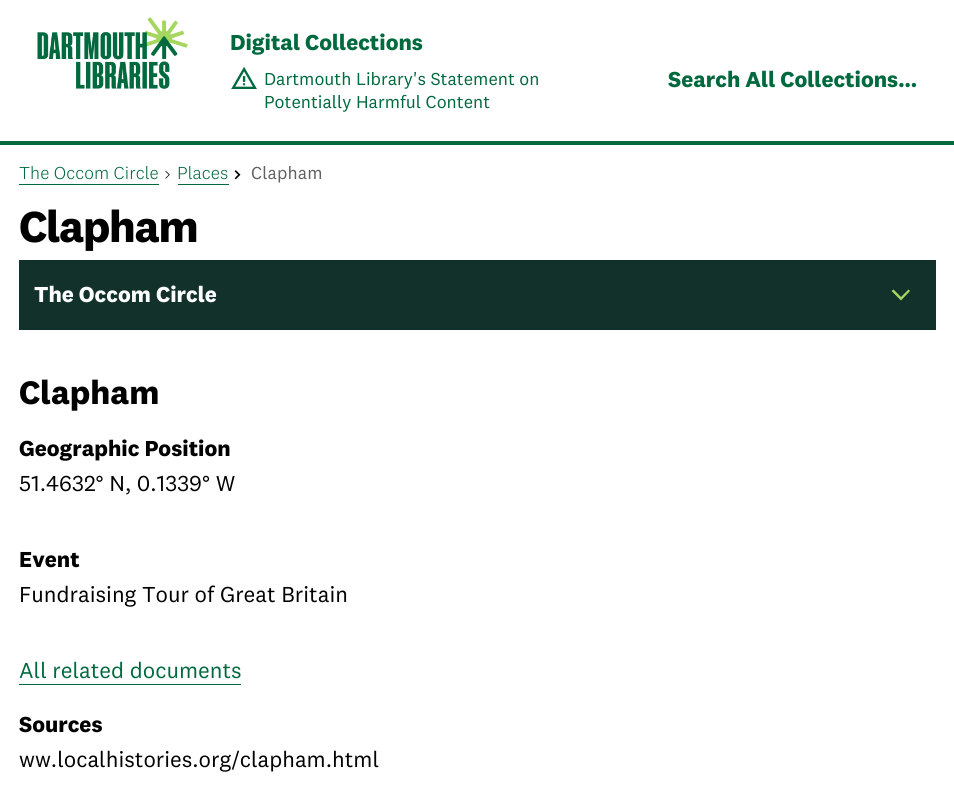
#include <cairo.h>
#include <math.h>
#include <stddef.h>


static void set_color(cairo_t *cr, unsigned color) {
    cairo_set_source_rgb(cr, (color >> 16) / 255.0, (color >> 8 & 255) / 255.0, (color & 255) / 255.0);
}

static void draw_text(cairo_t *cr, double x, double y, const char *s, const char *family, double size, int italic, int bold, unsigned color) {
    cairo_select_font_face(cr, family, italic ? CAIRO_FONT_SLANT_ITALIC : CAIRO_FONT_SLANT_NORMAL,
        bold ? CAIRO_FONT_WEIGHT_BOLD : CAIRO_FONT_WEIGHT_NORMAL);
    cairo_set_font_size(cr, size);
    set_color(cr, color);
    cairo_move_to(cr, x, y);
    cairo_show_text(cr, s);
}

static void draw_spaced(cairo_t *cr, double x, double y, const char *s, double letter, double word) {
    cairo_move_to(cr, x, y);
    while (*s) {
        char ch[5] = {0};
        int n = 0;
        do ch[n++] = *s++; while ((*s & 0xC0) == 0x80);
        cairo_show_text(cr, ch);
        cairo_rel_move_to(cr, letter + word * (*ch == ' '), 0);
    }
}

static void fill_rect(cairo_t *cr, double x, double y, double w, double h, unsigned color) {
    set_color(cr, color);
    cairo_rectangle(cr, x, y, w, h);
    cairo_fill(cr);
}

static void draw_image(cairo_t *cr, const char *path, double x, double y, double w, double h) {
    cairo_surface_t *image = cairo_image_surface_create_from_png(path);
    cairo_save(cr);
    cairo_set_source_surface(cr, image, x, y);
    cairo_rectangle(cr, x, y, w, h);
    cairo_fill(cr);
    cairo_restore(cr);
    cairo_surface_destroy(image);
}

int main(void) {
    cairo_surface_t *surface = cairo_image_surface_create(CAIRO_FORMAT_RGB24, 954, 788);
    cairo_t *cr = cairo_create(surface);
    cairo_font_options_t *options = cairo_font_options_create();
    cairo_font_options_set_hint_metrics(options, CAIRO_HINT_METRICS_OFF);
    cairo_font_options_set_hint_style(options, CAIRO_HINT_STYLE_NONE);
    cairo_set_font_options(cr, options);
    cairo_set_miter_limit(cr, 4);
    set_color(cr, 0xFFFFFF);
    cairo_paint(cr);
    fill_rect(cr, 0, 141, 954, 4, 0x00693E);
    draw_image(cr, "assets/img1.png", 37, 17, 151, 72);
    draw_text(cr, 230, 50, "Digital Collections", "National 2", 22.5, 0, 1, 0x00693E);
    draw_image(cr, "assets/img2.png", 231, 66, 26, 23);
    draw_text(cr, 264, 85, "Dartmouth Library's Statement on", "National 2", 18, 0, 0, 0x00693E);
    draw_text(cr, 264, 108, "Potentially Harmful Content", "National 2", 18, 0, 0, 0x00693E);
    draw_text(cr, 668, 87, "Search All Collections...", "National 2", 22.5, 0, 1, 0x00693E);
    cairo_select_font_face(cr, "National 2 Light", CAIRO_FONT_SLANT_NORMAL, CAIRO_FONT_WEIGHT_NORMAL);
    cairo_set_font_size(cr, 18);
    draw_spaced(cr, 19, 179, "The Occom Circle", 0.1, 0);
    fill_rect(cr, 19, 184, 140, 1, 0x00693E);
    draw_image(cr, "assets/img3.png", 165, 170, 5, 9);
    draw_spaced(cr, 177, 179, "Places", 0.1, 0);
    fill_rect(cr, 178, 184, 51, 1, 0x00693E);
    draw_image(cr, "assets/img4.png", 234, 170, 7, 10);
    cairo_select_font_face(cr, "National 2", CAIRO_FONT_SLANT_NORMAL, CAIRO_FONT_WEIGHT_NORMAL);
    set_color(cr, 0x616161);
    draw_spaced(cr, 251, 179, "Clapham", 0.1, 0);
    cairo_select_font_face(cr, "National 2", CAIRO_FONT_SLANT_NORMAL, CAIRO_FONT_WEIGHT_BOLD);
    cairo_set_font_size(cr, 45);
    set_color(cr, 0x000000);
    draw_spaced(cr, 19, 242, "Clapham", -1.25, 0);
    fill_rect(cr, 19, 260, 917, 70, 0x12312B);
    draw_text(cr, 34, 302, "The Occom Circle", "National 2", 22.5, 0, 1, 0xFFFFFF);
    set_color(cr, 0xA5D75F);
    cairo_new_path(cr);
    cairo_move_to(cr, 901, 300.5);
    cairo_line_to(cr, 891.5, 291);
    cairo_line_to(cr, 893.5, 289.5);
    cairo_line_to(cr, 901, 297);
    cairo_line_to(cr, 908.5, 289.5);
    cairo_line_to(cr, 910, 291);
    cairo_close_path(cr);
    cairo_fill(cr);
    draw_text(cr, 19, 404, "Clapham", "National 2", 33.75, 0, 1, 0x000000);
    draw_text(cr, 19, 456, "Geographic Position", "National 2", 22.5, 0, 1, 0x000000);
    draw_text(cr, 19, 491, "51.4632° N, 0.1339° W", "National 2", 22.5, 0, 0, 0x000000);
    draw_text(cr, 19, 567, "Event", "National 2", 22.5, 0, 1, 0x000000);
    draw_text(cr, 19, 602, "Fundraising Tour of Great Britain", "National 2", 22.5, 0, 0, 0x000000);
    draw_text(cr, 19, 678, "All related documents", "National 2", 22.5, 0, 0, 0x00693E);
    fill_rect(cr, 19, 684, 222, 1, 0x00693E);
    draw_text(cr, 19, 732, "Sources", "National 2", 22.5, 0, 1, 0x000000);
    draw_text(cr, 19, 767, "ww.localhistories.org/clapham.html", "National 2", 22.5, 0, 0, 0x000000);
    cairo_surface_write_to_png(surface, "output.png");
    cairo_font_options_destroy(options);
    cairo_destroy(cr);
    cairo_surface_destroy(surface);
    return 0;
}
